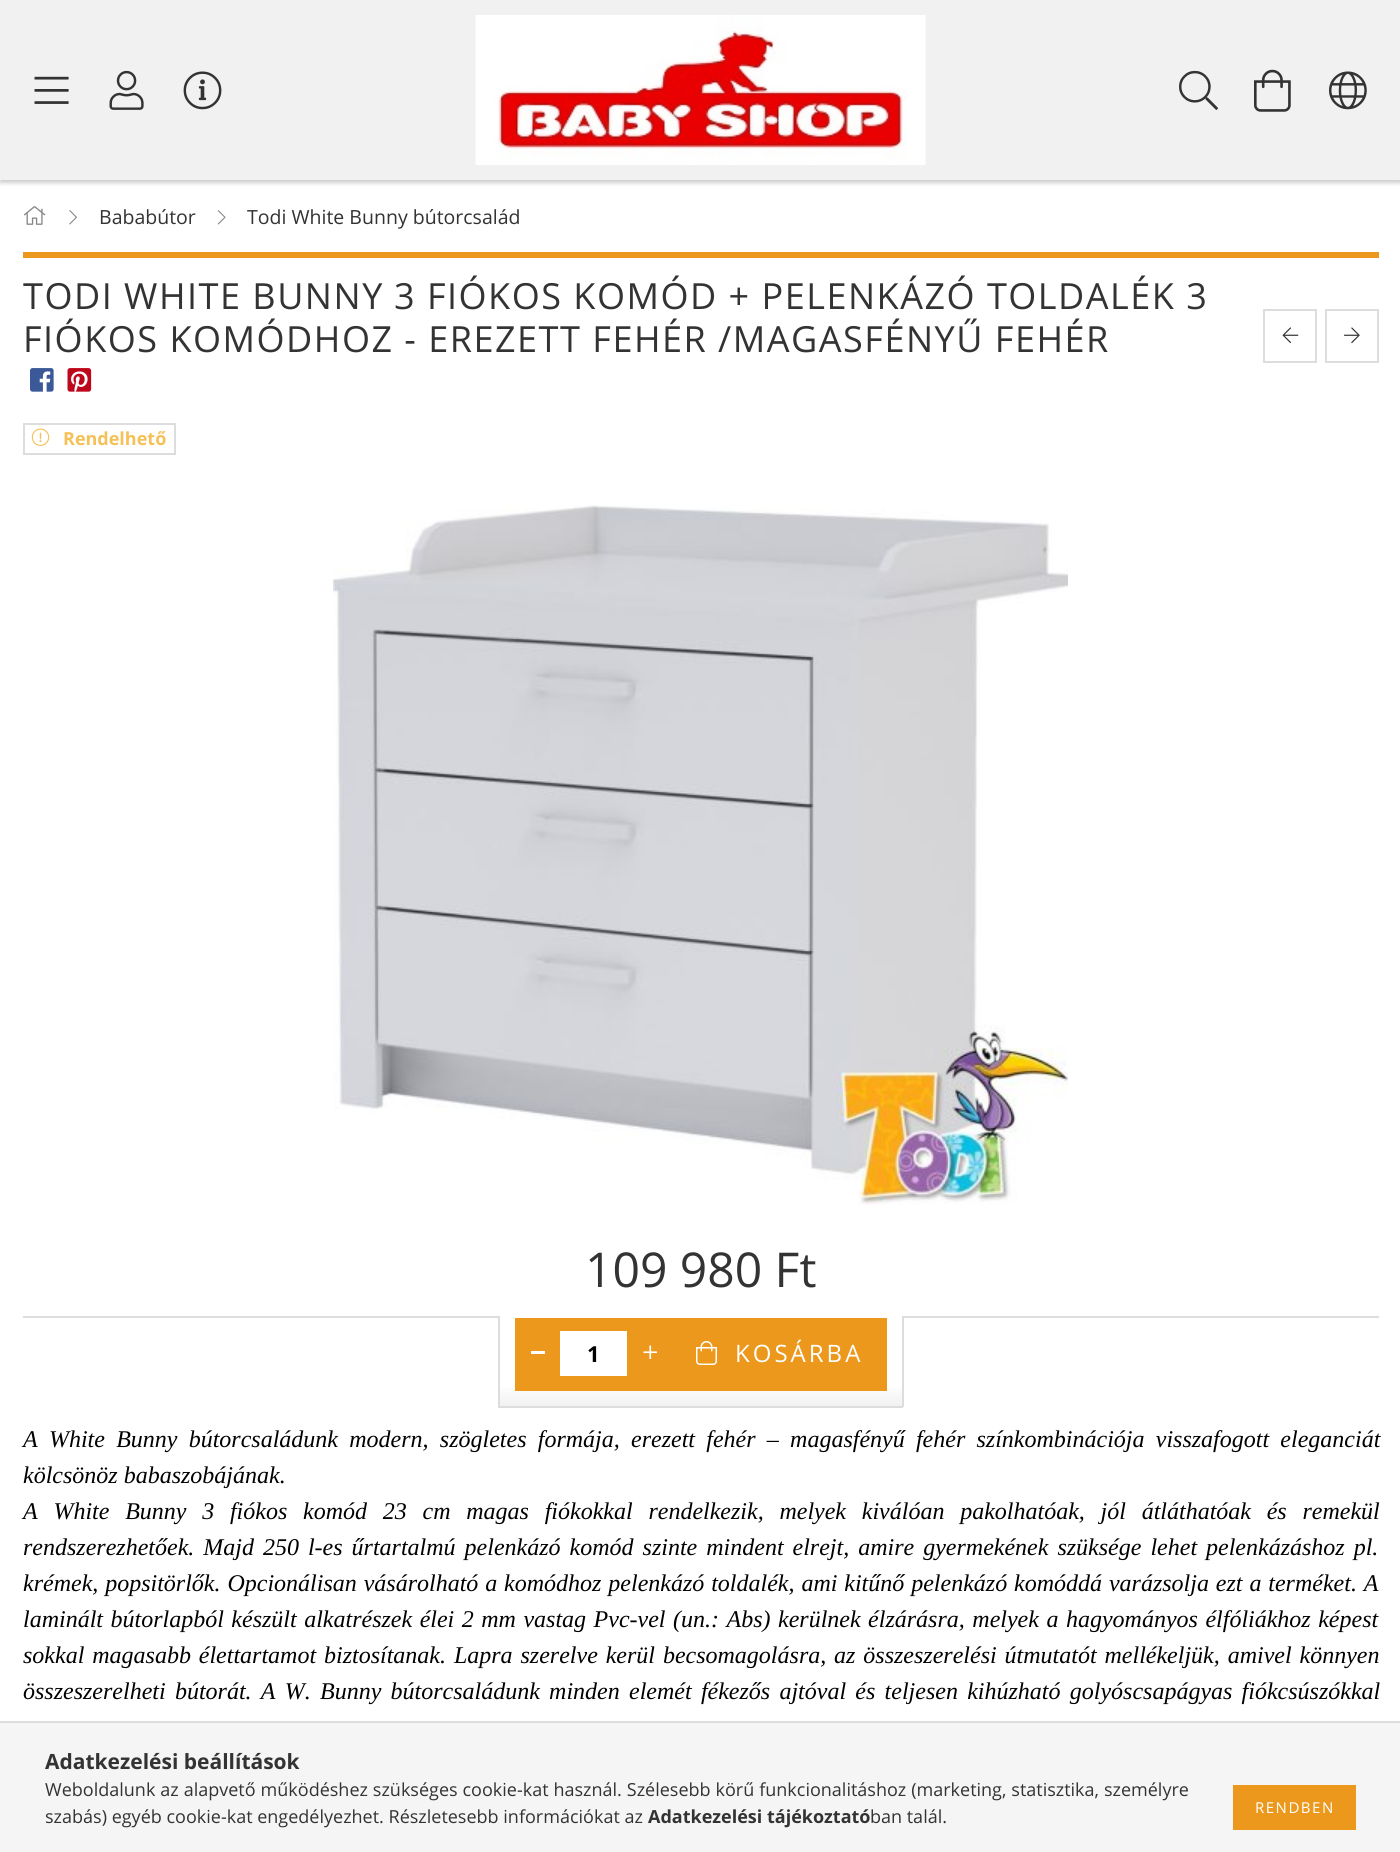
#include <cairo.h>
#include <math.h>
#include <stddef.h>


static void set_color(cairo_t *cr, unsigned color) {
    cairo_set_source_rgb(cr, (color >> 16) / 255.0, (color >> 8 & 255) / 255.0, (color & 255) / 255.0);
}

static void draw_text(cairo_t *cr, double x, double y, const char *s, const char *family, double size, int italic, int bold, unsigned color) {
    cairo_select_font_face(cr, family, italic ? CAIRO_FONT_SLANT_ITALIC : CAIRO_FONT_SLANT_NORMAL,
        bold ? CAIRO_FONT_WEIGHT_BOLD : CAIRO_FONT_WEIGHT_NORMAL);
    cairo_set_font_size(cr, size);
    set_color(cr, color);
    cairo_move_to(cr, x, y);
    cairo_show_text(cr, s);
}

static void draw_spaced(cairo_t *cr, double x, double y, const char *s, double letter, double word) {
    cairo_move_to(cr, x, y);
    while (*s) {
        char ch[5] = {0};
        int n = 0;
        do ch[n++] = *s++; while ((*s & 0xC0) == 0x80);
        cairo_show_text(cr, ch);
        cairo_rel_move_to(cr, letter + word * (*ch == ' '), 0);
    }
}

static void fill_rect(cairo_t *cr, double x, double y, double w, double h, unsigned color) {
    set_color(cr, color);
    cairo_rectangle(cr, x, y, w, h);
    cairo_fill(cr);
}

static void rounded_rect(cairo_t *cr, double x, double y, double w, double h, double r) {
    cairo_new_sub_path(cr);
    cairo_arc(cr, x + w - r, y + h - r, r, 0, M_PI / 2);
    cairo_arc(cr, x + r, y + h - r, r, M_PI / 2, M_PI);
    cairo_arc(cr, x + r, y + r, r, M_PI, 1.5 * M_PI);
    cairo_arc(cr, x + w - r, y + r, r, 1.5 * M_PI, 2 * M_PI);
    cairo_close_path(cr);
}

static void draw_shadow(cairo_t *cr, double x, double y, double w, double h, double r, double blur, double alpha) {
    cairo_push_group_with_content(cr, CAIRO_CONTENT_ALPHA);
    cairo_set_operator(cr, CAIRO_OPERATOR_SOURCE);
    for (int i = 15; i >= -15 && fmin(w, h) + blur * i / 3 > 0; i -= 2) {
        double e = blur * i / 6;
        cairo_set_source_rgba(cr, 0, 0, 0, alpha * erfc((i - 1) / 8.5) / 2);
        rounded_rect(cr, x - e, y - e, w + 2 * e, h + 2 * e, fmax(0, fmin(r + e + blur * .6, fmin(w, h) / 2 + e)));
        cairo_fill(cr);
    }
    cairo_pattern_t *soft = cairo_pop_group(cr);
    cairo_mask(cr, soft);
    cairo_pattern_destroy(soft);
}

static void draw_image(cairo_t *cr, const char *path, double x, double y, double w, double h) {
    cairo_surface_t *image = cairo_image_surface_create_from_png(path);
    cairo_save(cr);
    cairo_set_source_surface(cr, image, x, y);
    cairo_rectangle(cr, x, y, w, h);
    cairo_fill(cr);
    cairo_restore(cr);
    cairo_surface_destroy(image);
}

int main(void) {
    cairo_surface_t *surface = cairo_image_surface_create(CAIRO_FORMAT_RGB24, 1400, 1852);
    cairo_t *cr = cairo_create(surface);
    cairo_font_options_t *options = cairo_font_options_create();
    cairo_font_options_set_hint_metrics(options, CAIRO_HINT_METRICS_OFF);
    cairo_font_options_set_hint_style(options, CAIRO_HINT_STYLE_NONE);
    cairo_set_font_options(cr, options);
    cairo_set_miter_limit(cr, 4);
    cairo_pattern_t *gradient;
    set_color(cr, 0xFFFFFF);
    cairo_paint(cr);
    set_color(cr, 0x000000);
    draw_shadow(cr, 0, 3, 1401, 180, 0, 2, 0.2);
    fill_rect(cr, 0, 0, 1400, 180, 0xF1F1F1);
    draw_image(cr, "assets/img1.png", 34, 76, 35, 28);
    draw_image(cr, "assets/img2.png", 109, 70, 35, 40);
    draw_image(cr, "assets/img3.png", 183, 71, 39, 39);
    draw_image(cr, "assets/img4.png", 475, 15, 451, 150);
    draw_image(cr, "assets/img5.png", 1179, 70, 39, 40);
    draw_image(cr, "assets/img6.png", 1254, 69, 37, 43);
    draw_image(cr, "assets/img7.png", 1329, 71, 38, 39);
    draw_image(cr, "assets/img8.png", 23, 206, 23, 19);
    draw_image(cr, "assets/img9.png", 69, 210, 8, 15);
    draw_text(cr, 99, 224, "Bababútor", "Open Sans", 19.5, 0, 0, 0x333333);
    draw_image(cr, "assets/img10.png", 217, 210, 9, 15);
    draw_text(cr, 247, 224, "Todi White Bunny bútorcsalád", "Open Sans", 19.5, 0, 0, 0x333333);
    fill_rect(cr, 23, 252, 1356, 6, 0xEB981C);
    cairo_save(cr);
    cairo_rectangle(cr, 23, 275, 1225, 85);
    cairo_clip(cr);
    cairo_set_font_size(cr, 36);
    set_color(cr, 0x333333);
    draw_spaced(cr, 23, 309, "TODI WHITE BUNNY", 1.5, 0);
    cairo_restore(cr);
    cairo_set_font_size(cr, 36);
    set_color(cr, 0x333333);
    draw_spaced(cr, 394, 309, "3 FIÓKOS KOMÓD + PELENKÁZÓ TOLDALÉK 3", 1.5, 0);
    draw_spaced(cr, 23, 352, "FIÓKOS KOMÓDHOZ - EREZETT FEHÉR /MAGASFÉNYŰ FEHÉR", 1.5, 0);
    draw_image(cr, "assets/img11.png", 30, 368, 24, 24);
    draw_image(cr, "assets/img12.png", 67, 368, 25, 24);
    cairo_rectangle(cr, 1264, 310, 52, 52);
    set_color(cr, 0xDDDDDD);
    cairo_stroke(cr);
    draw_image(cr, "assets/img13.png", 1282, 327, 17, 17);
    cairo_rectangle(cr, 1326, 310, 52, 52);
    cairo_stroke(cr);
    draw_image(cr, "assets/img14.png", 1344, 327, 16, 17);
    cairo_rectangle(cr, 24, 424, 151, 30);
    cairo_stroke(cr);
    draw_image(cr, "assets/img15.png", 31, 428, 19, 18);
    draw_text(cr, 63, 445, "Rendelhető", "Open Sans", 18, 0, 1, 0xF5C056);
    draw_image(cr, "assets/img16.png", 333, 505, 735, 700);
    draw_text(cr, 585, 1287, "109 980 Ft", "Open Sans", 48, 0, 0, 0x333333);
    fill_rect(cr, 23, 1316, 1356, 2, 0xDDDDDD);
    gradient = cairo_pattern_create_linear(701, 1406, 701, 1316);
    cairo_pattern_add_color_stop_rgba(gradient, 0, 0.945, 0.945, 0.945, 1);
    cairo_pattern_add_color_stop_rgba(gradient, 0.25, 0.945, 0.945, 0.945, 0);
    cairo_pattern_add_color_stop_rgba(gradient, 1, 1, 1, 1, 0);
    cairo_set_source(cr, gradient);
    cairo_pattern_destroy(gradient);
    cairo_rectangle(cr, 500, 1388, 402, 18);
    cairo_fill(cr);
    fill_rect(cr, 902, 1316, 2, 91, 0xDDDDDD);
    fill_rect(cr, 498, 1406, 405, 2, 0xDDDDDD);
    fill_rect(cr, 498, 1316, 2, 91, 0xDDDDDD);
    fill_rect(cr, 500, 1316, 402, 2, 0xFFFFFF);
    fill_rect(cr, 515, 1318, 372, 73, 0xEB981C);
    fill_rect(cr, 531, 1351, 14, 3, 0xFFFFFF);
    fill_rect(cr, 560, 1331, 67, 45, 0xFFFFFF);
    draw_text(cr, 587, 1362, "1", "Open Sans", 22, 0, 1, 0x000000);
    draw_image(cr, "assets/img17.png", 643, 1345, 14, 14);
    draw_image(cr, "assets/img18.png", 696, 1341, 21, 24);
    cairo_select_font_face(cr, "Open Sans", CAIRO_FONT_SLANT_NORMAL, CAIRO_FONT_WEIGHT_NORMAL);
    cairo_set_font_size(cr, 24);
    set_color(cr, 0xFFFFFF);
    draw_spaced(cr, 735, 1362, "KOSÁRBA", 3, 0);
    cairo_select_font_face(cr, "Liberation Serif", CAIRO_FONT_SLANT_ITALIC, CAIRO_FONT_WEIGHT_NORMAL);
    set_color(cr, 0x000000);
    draw_spaced(cr, 23, 1447, "A White Bunny bútorcsaládunk modern, szögletes formája, erezett fehér – magasfényű fehér színkombinációja visszafogott eleganciát", 0, 5.25);
    draw_text(cr, 23, 1483, "kölcsönöz babaszobájának.", "Liberation Serif", 24, 1, 0, 0x000000);
    draw_spaced(cr, 23, 1519, "A White Bunny 3 fiókos komód 23 cm magas fiókokkal rendelkezik, melyek kiválóan pakolhatóak, jól átláthatóak és remekül", 0, 9.75);
    draw_spaced(cr, 23, 1555, "rendszerezhetőek. Majd 250 l-es űrtartalmú pelenkázó komód szinte mindent elrejt, amire gyermekének szüksége lehet pelenkázáshoz pl.", 0, 3);
    draw_spaced(cr, 23, 1591, "krémek, popsitörlők. Opcionálisan vásárolható a komódhoz pelenkázó toldalék, ami kitűnő pelenkázó komóddá varázsolja ezt a terméket. A", 0, 0.9);
    draw_spaced(cr, 23, 1627, "laminált bútorlapból készült alkatrészek élei 2 mm vastag Pvc-vel (un.: Abs) kerülnek élzárásra, melyek a hagyományos élfóliákhoz képest", 0, 1.5);
    draw_spaced(cr, 23, 1663, "sokkal magasabb élettartamot biztosítanak. Lapra szerelve kerül becsomagolásra, az összeszerelési útmutatót mellékeljük, amivel könnyen", 0, 1.9);
    draw_spaced(cr, 23, 1699, "összeszerelheti bútorát. A W. Bunny bútorcsaládunk minden elemét fékezős ajtóval és teljesen kihúzható golyóscsapágyas fiókcsúszókkal", 0, 3.25);
    fill_rect(cr, 0, 1723, 1400, 129, 0xF5F5F5);
    fill_rect(cr, 0, 1721, 1400, 2, 0xDDDDDD);
    draw_text(cr, 45, 1769, "Adatkezelési beállítások", "Open Sans", 21, 0, 1, 0x333333);
    cairo_select_font_face(cr, "Open Sans", CAIRO_FONT_SLANT_NORMAL, CAIRO_FONT_WEIGHT_NORMAL);
    cairo_set_font_size(cr, 18);
    draw_spaced(cr, 45, 1796, "Weboldalunk az alapvető működéshez szükséges cookie-kat használ. Szélesebb körű funkcionalitáshoz (marketing, statisztika, személyre", 0, 0.25);
    draw_text(cr, 45, 1823, "szabás) egyéb cookie-kat engedélyezhet. Részletesebb információkat az", "Open Sans", 18, 0, 0, 0x333333);
    draw_text(cr, 648, 1823, "Adatkezelési tájékoztató", "Open Sans", 18, 0, 1, 0x333333);
    draw_text(cr, 870, 1823, "ban talál.", "Open Sans", 18, 0, 0, 0x333333);
    fill_rect(cr, 1233, 1785, 123, 45, 0xEB981C);
    cairo_set_font_size(cr, 15);
    set_color(cr, 0xFFFFFF);
    draw_spaced(cr, 1255, 1813, "RENDBEN", 1.5, 0);
    cairo_surface_write_to_png(surface, "output.png");
    cairo_font_options_destroy(options);
    cairo_destroy(cr);
    cairo_surface_destroy(surface);
    return 0;
}
